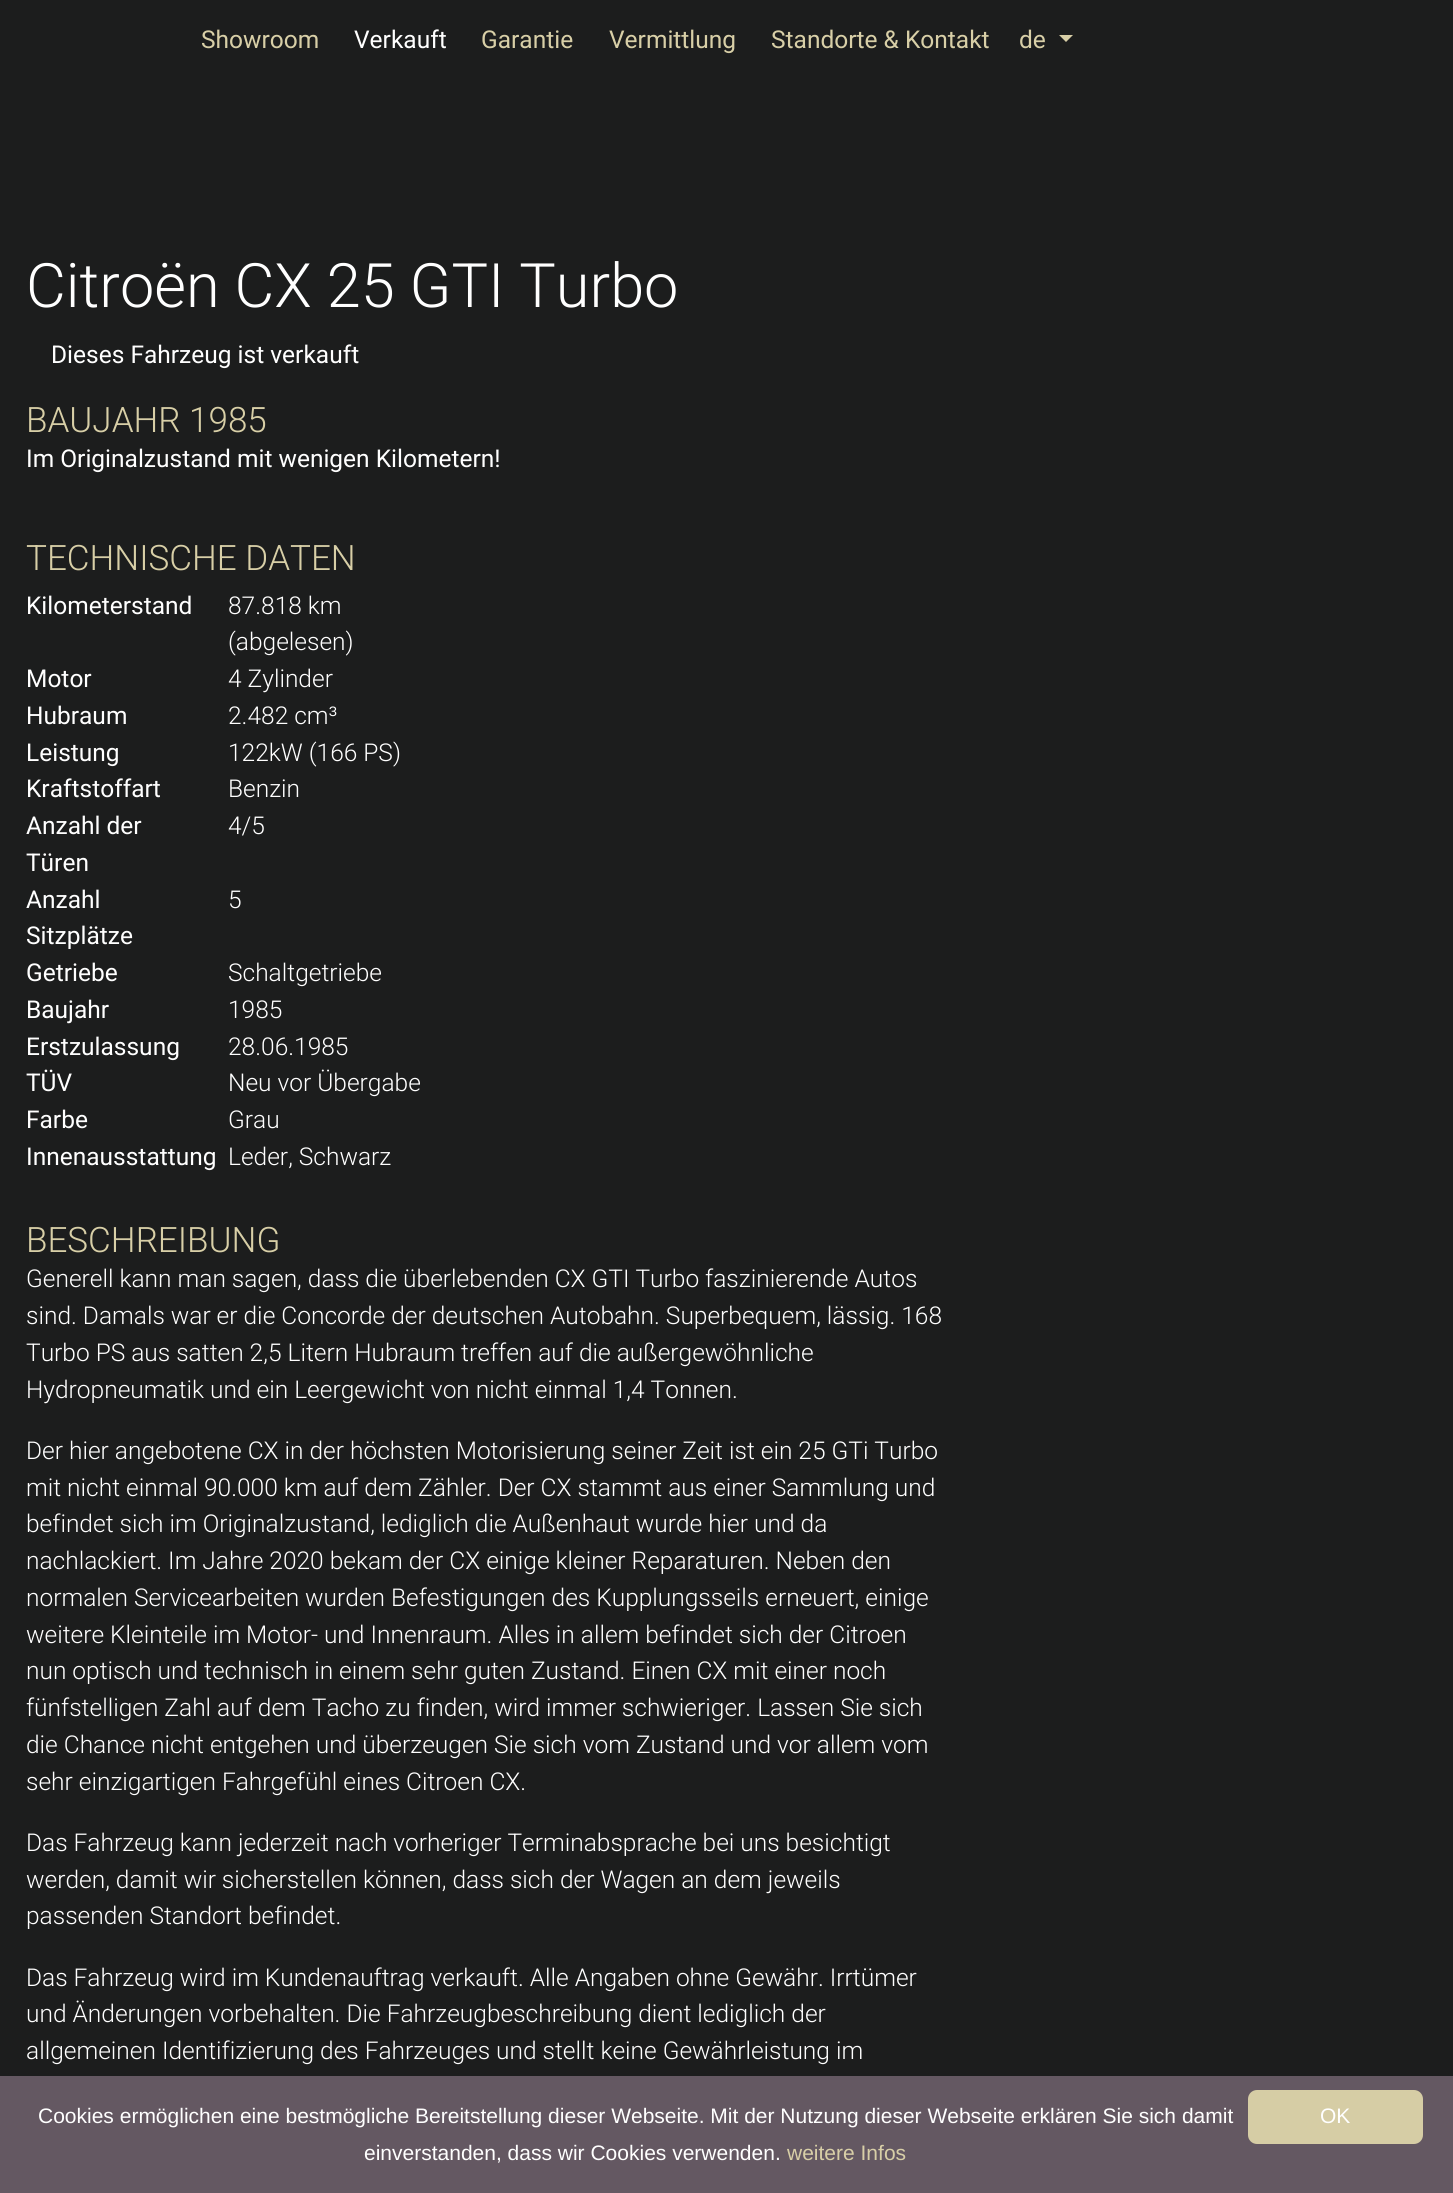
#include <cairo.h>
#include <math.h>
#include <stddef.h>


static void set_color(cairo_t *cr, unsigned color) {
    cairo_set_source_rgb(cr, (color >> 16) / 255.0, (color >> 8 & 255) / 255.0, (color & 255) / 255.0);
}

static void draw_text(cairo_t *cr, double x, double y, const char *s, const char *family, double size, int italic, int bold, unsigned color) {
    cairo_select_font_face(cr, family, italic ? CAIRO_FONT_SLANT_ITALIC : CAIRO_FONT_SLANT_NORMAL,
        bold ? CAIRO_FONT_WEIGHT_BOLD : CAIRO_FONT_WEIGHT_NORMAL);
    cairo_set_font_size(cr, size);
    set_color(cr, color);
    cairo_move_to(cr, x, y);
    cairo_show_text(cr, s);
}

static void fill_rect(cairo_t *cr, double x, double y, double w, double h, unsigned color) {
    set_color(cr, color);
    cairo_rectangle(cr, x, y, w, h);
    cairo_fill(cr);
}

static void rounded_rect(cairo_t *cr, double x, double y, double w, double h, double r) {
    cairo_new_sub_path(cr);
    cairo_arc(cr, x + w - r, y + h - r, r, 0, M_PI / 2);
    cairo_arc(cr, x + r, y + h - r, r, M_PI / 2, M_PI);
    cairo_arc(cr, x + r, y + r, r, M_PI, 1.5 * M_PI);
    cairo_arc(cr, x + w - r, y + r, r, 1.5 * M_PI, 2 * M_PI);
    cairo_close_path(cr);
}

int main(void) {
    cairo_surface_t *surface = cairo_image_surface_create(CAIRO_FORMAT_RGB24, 1453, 2193);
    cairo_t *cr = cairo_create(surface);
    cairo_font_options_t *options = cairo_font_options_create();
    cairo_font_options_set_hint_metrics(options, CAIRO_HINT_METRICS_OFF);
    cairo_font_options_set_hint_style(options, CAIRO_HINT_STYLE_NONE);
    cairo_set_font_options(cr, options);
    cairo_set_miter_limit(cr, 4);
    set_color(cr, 0x1C1D1D);
    cairo_paint(cr);
    draw_text(cr, 201, 48, "Showroom", "Roboto", 24.5, 0, 0, 0xD8CFA7);
    draw_text(cr, 354, 48, "Verkauft", "Roboto", 24.5, 0, 0, 0xFFFFFF);
    draw_text(cr, 481, 48, "Garantie", "Roboto", 24.5, 0, 0, 0xD8CFA7);
    draw_text(cr, 609, 48, "Vermittlung", "Roboto", 24.5, 0, 0, 0xD8CFA7);
    draw_text(cr, 771, 48, "Standorte & Kontakt", "Roboto", 24.5, 0, 0, 0xD8CFA7);
    draw_text(cr, 1019, 48, "de", "Roboto", 24.5, 0, 0, 0xD8CFA7);
    cairo_new_path(cr);
    cairo_move_to(cr, 1059, 35);
    cairo_line_to(cr, 1073, 35);
    cairo_line_to(cr, 1066, 42);
    cairo_close_path(cr);
    cairo_fill(cr);
    draw_text(cr, 26, 307, "Citroën CX 25 GTI Turbo", "Roboto Light", 61.25, 0, 0, 0xFFFFFF);
    draw_text(cr, 51, 363, "Dieses Fahrzeug ist verkauft", "Roboto", 24.5, 0, 0, 0xFFFFFF);
    draw_text(cr, 26, 432, "BAUJAHR 1985", "Roboto Light", 35, 0, 0, 0xD8CFA7);
    draw_text(cr, 26, 467, "Im Originalzustand mit wenigen Kilometern!", "Roboto", 24.5, 0, 0, 0xFFFFFF);
    draw_text(cr, 26, 570, "TECHNISCHE DATEN", "Roboto Light", 35, 0, 0, 0xD8CFA7);
    draw_text(cr, 26, 614, "Kilometerstand", "Roboto", 24.5, 0, 0, 0xFFFFFF);
    draw_text(cr, 228, 614, "87.818 km", "Roboto Light", 24.5, 0, 0, 0xFFFFFF);
    draw_text(cr, 228, 650, "(abgelesen)", "Roboto Light", 24.5, 0, 0, 0xFFFFFF);
    draw_text(cr, 26, 687, "Motor", "Roboto", 24.5, 0, 0, 0xFFFFFF);
    draw_text(cr, 228, 687, "4 Zylinder", "Roboto Light", 24.5, 0, 0, 0xFFFFFF);
    draw_text(cr, 26, 724, "Hubraum", "Roboto", 24.5, 0, 0, 0xFFFFFF);
    draw_text(cr, 228, 724, "2.482 cm³", "Roboto Light", 24.5, 0, 0, 0xFFFFFF);
    draw_text(cr, 26, 761, "Leistung", "Roboto", 24.5, 0, 0, 0xFFFFFF);
    draw_text(cr, 228, 761, "122kW (166 PS)", "Roboto Light", 24.5, 0, 0, 0xFFFFFF);
    draw_text(cr, 26, 797, "Kraftstoffart", "Roboto", 24.5, 0, 0, 0xFFFFFF);
    draw_text(cr, 228, 797, "Benzin", "Roboto Light", 24.5, 0, 0, 0xFFFFFF);
    draw_text(cr, 26, 834, "Anzahl der", "Roboto", 24.5, 0, 0, 0xFFFFFF);
    draw_text(cr, 26, 871, "Türen", "Roboto", 24.5, 0, 0, 0xFFFFFF);
    draw_text(cr, 228, 834, "4/5", "Roboto Light", 24.5, 0, 0, 0xFFFFFF);
    draw_text(cr, 26, 908, "Anzahl", "Roboto", 24.5, 0, 0, 0xFFFFFF);
    draw_text(cr, 26, 944, "Sitzplätze", "Roboto", 24.5, 0, 0, 0xFFFFFF);
    draw_text(cr, 228, 908, "5", "Roboto Light", 24.5, 0, 0, 0xFFFFFF);
    draw_text(cr, 26, 981, "Getriebe", "Roboto", 24.5, 0, 0, 0xFFFFFF);
    draw_text(cr, 228, 981, "Schaltgetriebe", "Roboto Light", 24.5, 0, 0, 0xFFFFFF);
    draw_text(cr, 26, 1018, "Baujahr", "Roboto", 24.5, 0, 0, 0xFFFFFF);
    draw_text(cr, 228, 1018, "1985", "Roboto Light", 24.5, 0, 0, 0xFFFFFF);
    draw_text(cr, 26, 1055, "Erstzulassung", "Roboto", 24.5, 0, 0, 0xFFFFFF);
    draw_text(cr, 228, 1055, "28.06.1985", "Roboto Light", 24.5, 0, 0, 0xFFFFFF);
    draw_text(cr, 26, 1091, "TÜV", "Roboto", 24.5, 0, 0, 0xFFFFFF);
    draw_text(cr, 228, 1091, "Neu vor Übergabe", "Roboto Light", 24.5, 0, 0, 0xFFFFFF);
    draw_text(cr, 26, 1128, "Farbe", "Roboto", 24.5, 0, 0, 0xFFFFFF);
    draw_text(cr, 228, 1128, "Grau", "Roboto Light", 24.5, 0, 0, 0xFFFFFF);
    draw_text(cr, 26, 1165, "Innenausstattung", "Roboto", 24.5, 0, 0, 0xFFFFFF);
    draw_text(cr, 228, 1165, "Leder, Schwarz", "Roboto Light", 24.5, 0, 0, 0xFFFFFF);
    draw_text(cr, 26, 1252, "BESCHREIBUNG", "Roboto Light", 35, 0, 0, 0xD8CFA7);
    draw_text(cr, 26, 1287, "Generell kann man sagen, dass die überlebenden CX GTI Turbo faszinierende Autos", "Roboto Light", 24.5, 0, 0, 0xFFFFFF);
    draw_text(cr, 26, 1324, "sind. Damals war er die Concorde der deutschen Autobahn. Superbequem, lässig. 168", "Roboto Light", 24.5, 0, 0, 0xFFFFFF);
    draw_text(cr, 26, 1361, "Turbo PS aus satten 2,5 Litern Hubraum treffen auf die außergewöhnliche", "Roboto Light", 24.5, 0, 0, 0xFFFFFF);
    draw_text(cr, 26, 1398, "Hydropneumatik und ein Leergewicht von nicht einmal 1,4 Tonnen.", "Roboto Light", 24.5, 0, 0, 0xFFFFFF);
    draw_text(cr, 26, 1459, "Der hier angebotene CX in der höchsten Motorisierung seiner Zeit ist ein 25 GTi Turbo", "Roboto Light", 24.5, 0, 0, 0xFFFFFF);
    draw_text(cr, 26, 1496, "mit nicht einmal 90.000 km auf dem Zähler. Der CX stammt aus einer Sammlung und", "Roboto Light", 24.5, 0, 0, 0xFFFFFF);
    draw_text(cr, 26, 1532, "befindet sich im Originalzustand, lediglich die Außenhaut wurde hier und da", "Roboto Light", 24.5, 0, 0, 0xFFFFFF);
    draw_text(cr, 26, 1569, "nachlackiert. Im Jahre 2020 bekam der CX einige kleiner Reparaturen. Neben den", "Roboto Light", 24.5, 0, 0, 0xFFFFFF);
    draw_text(cr, 26, 1606, "normalen Servicearbeiten wurden Befestigungen des Kupplungsseils erneuert, einige", "Roboto Light", 24.5, 0, 0, 0xFFFFFF);
    draw_text(cr, 26, 1643, "weitere Kleinteile im Motor- und Innenraum. Alles in allem befindet sich der Citroen", "Roboto Light", 24.5, 0, 0, 0xFFFFFF);
    draw_text(cr, 26, 1679, "nun optisch und technisch in einem sehr guten Zustand. Einen CX mit einer noch", "Roboto Light", 24.5, 0, 0, 0xFFFFFF);
    draw_text(cr, 26, 1716, "fünfstelligen Zahl auf dem Tacho zu finden, wird immer schwieriger. Lassen Sie sich", "Roboto Light", 24.5, 0, 0, 0xFFFFFF);
    draw_text(cr, 26, 1753, "die Chance nicht entgehen und überzeugen Sie sich vom Zustand und vor allem vom", "Roboto Light", 24.5, 0, 0, 0xFFFFFF);
    draw_text(cr, 26, 1790, "sehr einzigartigen Fahrgefühl eines Citroen CX.", "Roboto Light", 24.5, 0, 0, 0xFFFFFF);
    draw_text(cr, 26, 1851, "Das Fahrzeug kann jederzeit nach vorheriger Terminabsprache bei uns besichtigt", "Roboto Light", 24.5, 0, 0, 0xFFFFFF);
    draw_text(cr, 26, 1888, "werden, damit wir sicherstellen können, dass sich der Wagen an dem jeweils", "Roboto Light", 24.5, 0, 0, 0xFFFFFF);
    draw_text(cr, 26, 1924, "passenden Standort befindet.", "Roboto Light", 24.5, 0, 0, 0xFFFFFF);
    draw_text(cr, 26, 1986, "Das Fahrzeug wird im Kundenauftrag verkauft. Alle Angaben ohne Gewähr. Irrtümer", "Roboto Light", 24.5, 0, 0, 0xFFFFFF);
    draw_text(cr, 26, 2022, "und Änderungen vorbehalten. Die Fahrzeugbeschreibung dient lediglich der", "Roboto Light", 24.5, 0, 0, 0xFFFFFF);
    draw_text(cr, 26, 2059, "allgemeinen Identifizierung des Fahrzeuges und stellt keine Gewährleistung im", "Roboto Light", 24.5, 0, 0, 0xFFFFFF);
    fill_rect(cr, 0, 2076, 1453, 117, 0x645862);
    draw_text(cr, 38, 2123, "Cookies ermöglichen eine bestmögliche Bereitstellung dieser Webseite. Mit der Nutzung dieser Webseite erklären Sie sich damit", "Liberation Sans", 21, 0, 0, 0xFFFFFF);
    draw_text(cr, 364, 2160, "einverstanden, dass wir Cookies verwenden.", "Liberation Sans", 21, 0, 0, 0xFFFFFF);
    draw_text(cr, 787, 2160, "weitere Infos", "Liberation Sans", 21, 0, 0, 0xD8CFA7);
    set_color(cr, 0xD6CDA5);
    rounded_rect(cr, 1248, 2090, 175, 54, 9);
    cairo_fill(cr);
    draw_text(cr, 1320, 2123, "OK", "Liberation Sans", 21, 0, 0, 0xFFFFFF);
    cairo_surface_write_to_png(surface, "output.png");
    cairo_font_options_destroy(options);
    cairo_destroy(cr);
    cairo_surface_destroy(surface);
    return 0;
}
